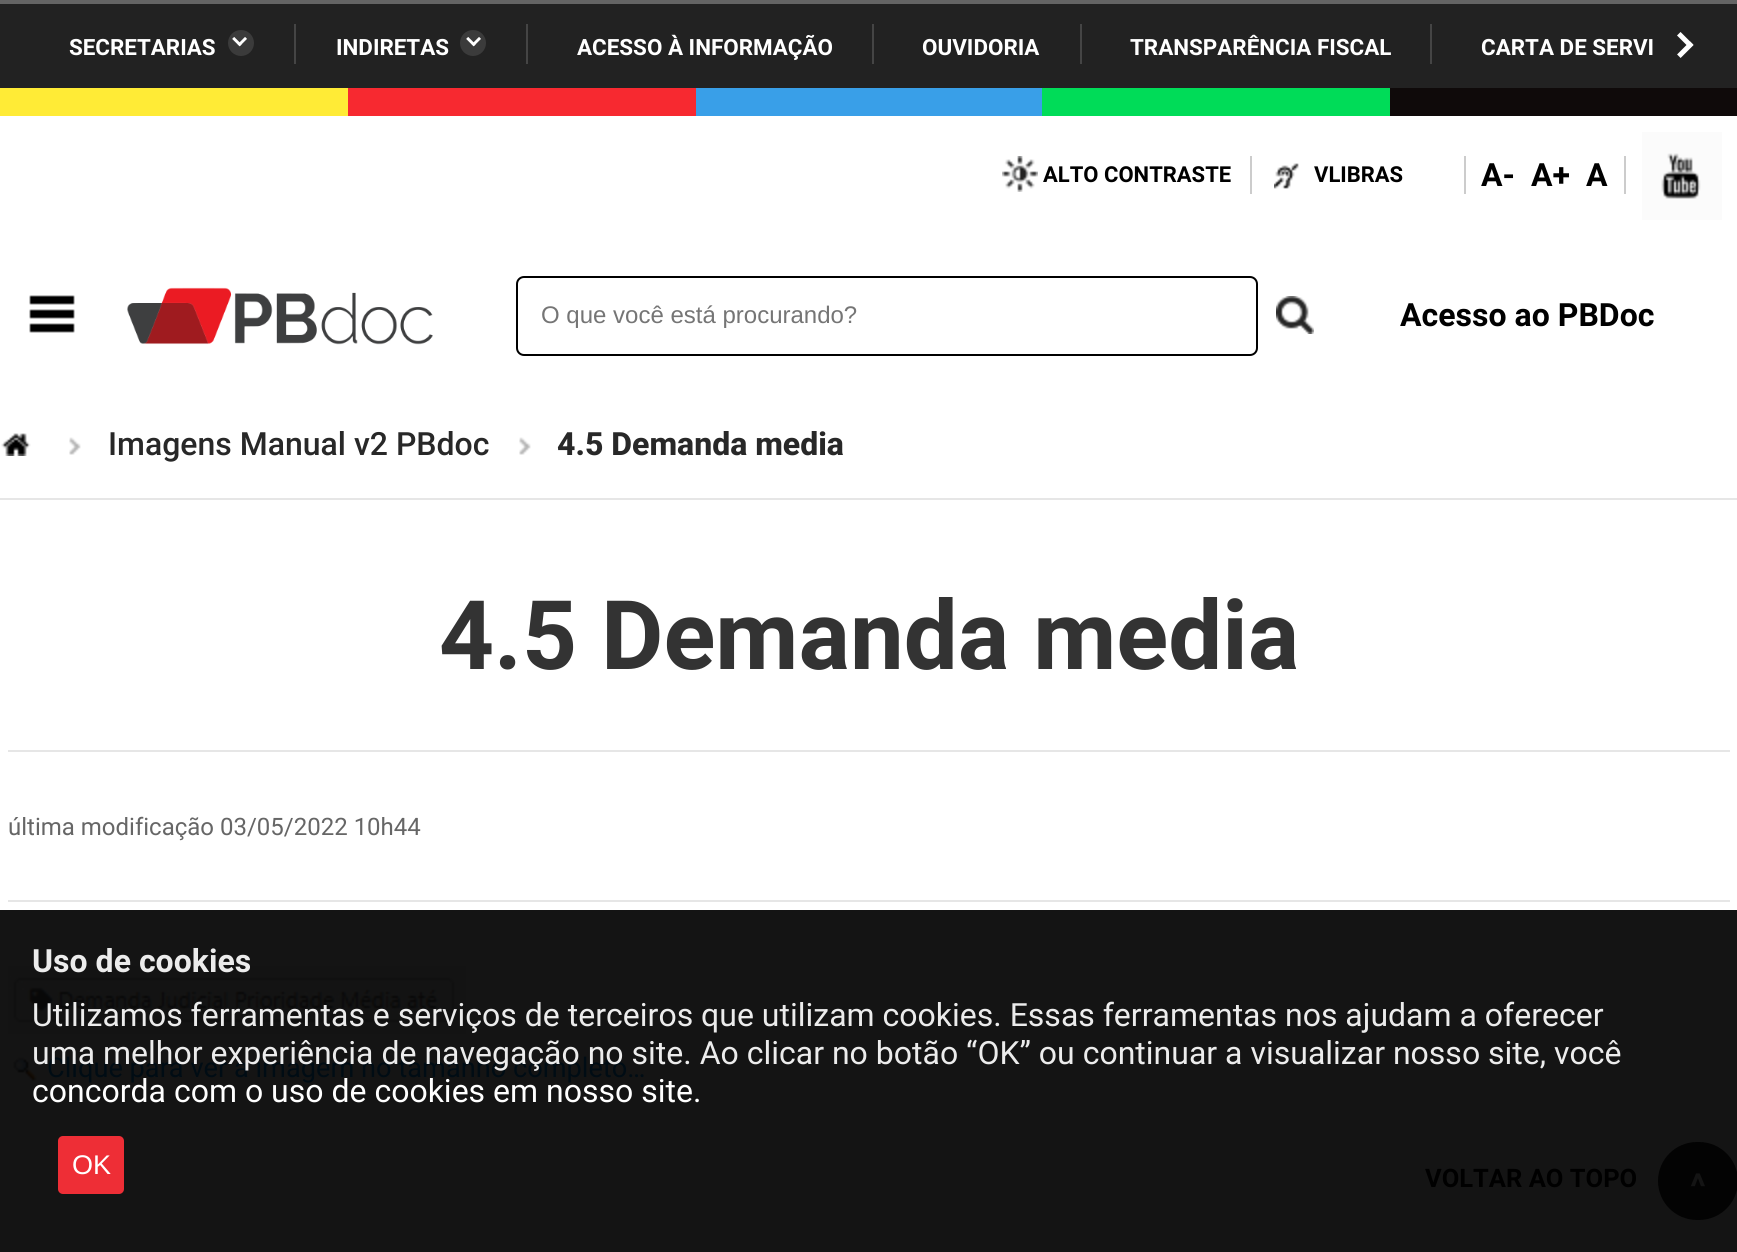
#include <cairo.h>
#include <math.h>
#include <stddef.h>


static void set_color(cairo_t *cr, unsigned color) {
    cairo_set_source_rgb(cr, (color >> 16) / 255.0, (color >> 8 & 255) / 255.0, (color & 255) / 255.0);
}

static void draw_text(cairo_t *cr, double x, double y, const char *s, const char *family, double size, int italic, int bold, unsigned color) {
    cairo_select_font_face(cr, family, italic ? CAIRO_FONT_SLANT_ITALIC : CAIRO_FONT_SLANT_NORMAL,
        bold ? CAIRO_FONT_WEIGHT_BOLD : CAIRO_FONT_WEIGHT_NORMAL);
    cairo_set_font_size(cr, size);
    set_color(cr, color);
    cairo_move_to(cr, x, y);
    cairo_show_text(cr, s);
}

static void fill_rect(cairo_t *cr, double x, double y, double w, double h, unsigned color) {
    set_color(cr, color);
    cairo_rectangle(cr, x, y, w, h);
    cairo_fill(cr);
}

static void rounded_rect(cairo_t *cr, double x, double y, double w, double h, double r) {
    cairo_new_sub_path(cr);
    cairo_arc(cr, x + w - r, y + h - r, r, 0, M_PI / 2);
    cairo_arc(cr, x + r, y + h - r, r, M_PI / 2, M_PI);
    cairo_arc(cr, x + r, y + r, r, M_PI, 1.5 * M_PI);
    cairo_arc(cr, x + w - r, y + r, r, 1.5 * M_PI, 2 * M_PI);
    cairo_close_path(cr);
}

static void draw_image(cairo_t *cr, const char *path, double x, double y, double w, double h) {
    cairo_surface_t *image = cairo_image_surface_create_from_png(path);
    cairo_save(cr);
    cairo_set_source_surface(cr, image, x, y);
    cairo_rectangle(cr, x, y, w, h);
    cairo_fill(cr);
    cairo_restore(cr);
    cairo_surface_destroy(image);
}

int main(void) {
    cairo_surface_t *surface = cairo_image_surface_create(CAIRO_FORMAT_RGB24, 1737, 1252);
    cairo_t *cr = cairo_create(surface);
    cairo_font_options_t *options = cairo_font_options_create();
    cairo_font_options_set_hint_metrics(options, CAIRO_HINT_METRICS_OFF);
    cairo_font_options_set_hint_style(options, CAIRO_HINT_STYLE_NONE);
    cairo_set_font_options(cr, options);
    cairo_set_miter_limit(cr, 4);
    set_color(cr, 0xFFFFFF);
    cairo_paint(cr);
    fill_rect(cr, 0, 910, 1737, 342, 0x141414);
    fill_rect(cr, 0, 4, 1737, 84, 0x222222);
    fill_rect(cr, 0, 0, 1737, 4, 0x646464);
    draw_text(cr, 69, 55, "SECRETARIAS", "Roboto", 22.4, 0, 1, 0xFFFFFF);
    set_color(cr, 0x3B3B3B);
    cairo_new_path(cr);
    cairo_arc(cr, 241, 43, 13, 0, 2 * M_PI);
    cairo_fill(cr);
    draw_image(cr, "assets/img1.png", 232, 37, 15, 10);
    fill_rect(cr, 294, 24, 2, 40, 0x454545);
    draw_text(cr, 336, 55, "INDIRETAS", "Roboto", 22.4, 0, 1, 0xFFFFFF);
    set_color(cr, 0x3B3B3B);
    cairo_new_path(cr);
    cairo_arc(cr, 473, 43, 13, 0, 2 * M_PI);
    cairo_fill(cr);
    draw_image(cr, "assets/img1.png", 466, 37, 15, 10);
    fill_rect(cr, 526, 24, 2, 40, 0x454545);
    draw_text(cr, 577, 55, "ACESSO À INFORMAÇÃO", "Roboto", 22.4, 0, 1, 0xFFFFFF);
    fill_rect(cr, 872, 24, 2, 40, 0x454545);
    draw_text(cr, 922, 55, "OUVIDORIA", "Roboto", 22.4, 0, 1, 0xFFFFFF);
    fill_rect(cr, 1080, 24, 2, 40, 0x454545);
    draw_text(cr, 1130, 55, "TRANSPARÊNCIA FISCAL", "Roboto", 22.4, 0, 1, 0xFFFFFF);
    fill_rect(cr, 1430, 24, 2, 40, 0x454545);
    draw_text(cr, 1481, 55, "CARTA DE SERVI", "Roboto", 22.4, 0, 1, 0xFFFFFF);
    draw_image(cr, "assets/img2.png", 1677, 32, 17, 26);
    fill_rect(cr, 0, 88, 348, 28, 0xFFEB36);
    fill_rect(cr, 348, 88, 348, 28, 0xF72930);
    fill_rect(cr, 696, 88, 346, 28, 0x399FE8);
    fill_rect(cr, 1042, 88, 348, 28, 0x00DC58);
    fill_rect(cr, 1390, 88, 347, 28, 0x0F0A0A);
    fill_rect(cr, 1250, 156, 2, 38, 0xCCCCCC);
    draw_image(cr, "assets/img3.png", 1002, 156, 36, 36);
    draw_text(cr, 1043, 182, "ALTO CONTRASTE", "Roboto", 22, 0, 1, 0x000000);
    draw_image(cr, "assets/img4.png", 1274, 163, 25, 26);
    draw_text(cr, 1314, 182, "VLIBRAS", "Roboto", 22, 0, 1, 0x000000);
    fill_rect(cr, 1624, 156, 2, 38, 0xCCCCCC);
    fill_rect(cr, 1464, 156, 2, 38, 0xCCCCCC);
    draw_text(cr, 1481, 186, "A-", "Roboto", 32, 0, 1, 0x000000);
    draw_text(cr, 1531, 186, "A+", "Roboto", 32, 0, 1, 0x000000);
    draw_text(cr, 1586, 186, "A", "Roboto", 32, 0, 1, 0x000000);
    fill_rect(cr, 1642, 132, 80, 88, 0xFBFBFB);
    draw_image(cr, "assets/img5.png", 1661, 153, 40, 46);
    draw_image(cr, "assets/img6.png", 29, 295, 46, 38);
    draw_image(cr, "assets/img7.png", 127, 287, 306, 58);
    rounded_rect(cr, 517, 277, 740, 78, 7);
    set_color(cr, 0x000000);
    cairo_stroke(cr);
    draw_text(cr, 541, 323, "O que você está procurando?", "Liberation Sans", 24, 0, 0, 0x757575);
    draw_image(cr, "assets/img8.png", 1276, 296, 38, 38);
    draw_text(cr, 1400, 326, "Acesso ao PBDoc", "Roboto", 32, 0, 1, 0x000000);
    fill_rect(cr, 0, 498, 1737, 2, 0xE6E6E6);
    draw_image(cr, "assets/img9.png", 1, 433, 30, 23);
    draw_image(cr, "assets/img10.png", 69, 437, 12, 18);
    draw_text(cr, 108, 455, "Imagens Manual v2 PBdoc", "Roboto Medium", 32, 0, 0, 0x282828);
    draw_image(cr, "assets/img10.png", 519, 437, 12, 18);
    draw_text(cr, 557, 455, "4.5 Demanda media", "Roboto ExtraBold", 32, 0, 0, 0x282828);
    draw_text(cr, 439, 669, "4.5 Demanda media", "Roboto", 96, 0, 1, 0x333333);
    fill_rect(cr, 8, 750, 1722, 2, 0xE6E6E6);
    fill_rect(cr, 8, 900, 1722, 2, 0xE6E6E6);
    draw_text(cr, 8, 835, "última modificação 03/05/2022 10h44", "Roboto", 24, 0, 0, 0x666666);
    draw_image(cr, "assets/img11.png", 8, 966, 458, 68);
    draw_image(cr, "assets/img12.png", 13, 1057, 24, 24);
    draw_text(cr, 47, 1077, "Clique para ver a imagem no tamanho completo…", "Roboto", 27.2, 0, 0, 0x000C14);
    draw_text(cr, 1425, 1187, "VOLTAR AO TOPO", "Roboto", 25.5, 0, 1, 0x000000);
    set_color(cr, 0x030303);
    rounded_rect(cr, 1658, 1142, 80, 78, 39);
    cairo_fill(cr);
    draw_text(cr, 1690, 1199, "^", "Roboto", 36, 0, 1, 0x141414);
    draw_text(cr, 32, 972, "Uso de cookies", "Roboto", 32, 0, 1, 0xECECEC);
    draw_text(cr, 32, 1026, "Utilizamos ferramentas e serviços de terceiros que utilizam cookies. Essas ferramentas nos ajudam a oferecer", "Roboto", 32, 0, 0, 0xECECEC);
    draw_text(cr, 32, 1064, "uma melhor experiência de navegação no site. Ao clicar no botão “OK” ou continuar a visualizar nosso site, você", "Roboto", 32, 0, 0, 0xECECEC);
    draw_text(cr, 32, 1102, "concorda com o uso de cookies em nosso site.", "Roboto", 32, 0, 0, 0xFFFFFF);
    set_color(cr, 0xEE2E36);
    rounded_rect(cr, 58, 1136, 66, 58, 5);
    cairo_fill(cr);
    draw_text(cr, 72, 1174, "OK", "Liberation Sans", 27, 0, 0, 0xFFFFFF);
    cairo_surface_write_to_png(surface, "output.png");
    cairo_font_options_destroy(options);
    cairo_destroy(cr);
    cairo_surface_destroy(surface);
    return 0;
}
